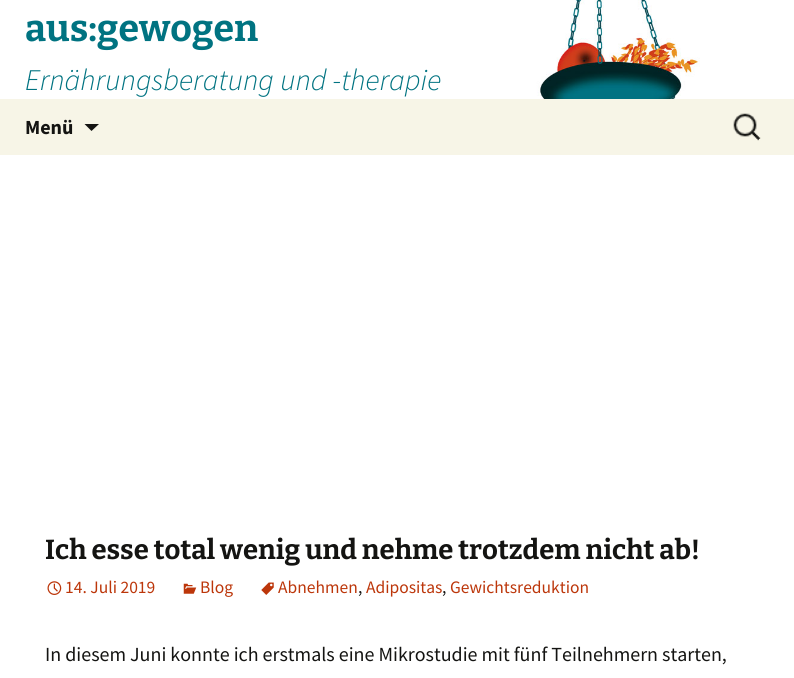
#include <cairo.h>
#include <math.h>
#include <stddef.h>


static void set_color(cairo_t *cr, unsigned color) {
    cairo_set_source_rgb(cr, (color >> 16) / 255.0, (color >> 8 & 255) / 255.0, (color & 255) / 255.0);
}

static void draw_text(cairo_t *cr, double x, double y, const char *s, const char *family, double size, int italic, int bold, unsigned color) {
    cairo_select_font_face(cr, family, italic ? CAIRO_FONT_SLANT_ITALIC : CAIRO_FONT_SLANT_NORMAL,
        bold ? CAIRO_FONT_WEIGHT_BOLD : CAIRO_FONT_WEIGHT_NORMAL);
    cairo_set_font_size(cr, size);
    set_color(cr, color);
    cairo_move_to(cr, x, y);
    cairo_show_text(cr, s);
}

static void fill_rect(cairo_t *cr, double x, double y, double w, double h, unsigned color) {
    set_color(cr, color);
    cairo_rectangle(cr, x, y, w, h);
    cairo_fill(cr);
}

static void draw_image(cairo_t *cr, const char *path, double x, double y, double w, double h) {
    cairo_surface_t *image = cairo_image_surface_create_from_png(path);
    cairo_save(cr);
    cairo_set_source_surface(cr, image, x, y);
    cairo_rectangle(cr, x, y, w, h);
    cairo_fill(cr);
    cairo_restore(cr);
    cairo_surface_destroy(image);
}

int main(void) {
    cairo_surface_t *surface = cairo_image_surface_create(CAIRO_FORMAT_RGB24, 794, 678);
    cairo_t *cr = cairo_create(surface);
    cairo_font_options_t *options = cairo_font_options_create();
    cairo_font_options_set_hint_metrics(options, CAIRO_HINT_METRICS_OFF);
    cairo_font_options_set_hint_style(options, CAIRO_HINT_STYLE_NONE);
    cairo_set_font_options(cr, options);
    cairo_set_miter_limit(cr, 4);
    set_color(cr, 0xFFFFFF);
    cairo_paint(cr);
    draw_image(cr, "assets/img1.png", 522, 0, 178, 99);
    draw_text(cr, 25, 41, "aus:gewogen", "Bitter Thin", 37.5, 0, 0, 0x007381);
    draw_text(cr, 25, 90, "Ernährungsberatung und -therapie", "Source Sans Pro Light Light", 30, 1, 0, 0x007381);
    fill_rect(cr, 0, 99, 794, 56, 0xF7F5E7);
    draw_text(cr, 25, 134, "Menü", "Source Sans Pro", 20, 0, 1, 0x141412);
    cairo_new_path(cr);
    cairo_move_to(cr, 84.5, 124);
    cairo_line_to(cr, 91.5, 131);
    cairo_line_to(cr, 99, 124);
    cairo_close_path(cr);
    cairo_fill(cr);
    draw_image(cr, "assets/img2.png", 733, 113, 28, 28);
    draw_text(cr, 45, 559, "Ich esse total wenig und nehme trotzdem nicht ab!", "Bitter Thin", 27.5, 0, 0, 0x141412);
    draw_image(cr, "assets/img3.png", 47, 581, 15, 14);
    draw_text(cr, 65, 593, "14. Juli 2019", "Source Sans Pro", 17.5, 0, 0, 0xBC360A);
    draw_image(cr, "assets/img4.png", 183, 583, 14, 11);
    draw_text(cr, 200, 593, "Blog", "Source Sans Pro", 17.5, 0, 0, 0xBC360A);
    draw_image(cr, "assets/img5.png", 261, 582, 13, 13);
    draw_text(cr, 278, 593, "Abnehmen", "Source Sans Pro", 17.5, 0, 0, 0xBC360A);
    draw_text(cr, 358, 593, ",", "Source Sans Pro", 17.5, 0, 0, 0x141412);
    draw_text(cr, 366, 593, "Adipositas", "Source Sans Pro", 17.5, 0, 0, 0xBC360A);
    draw_text(cr, 442, 593, ",", "Source Sans Pro", 17.5, 0, 0, 0x141412);
    draw_text(cr, 450, 593, "Gewichtsreduktion", "Source Sans Pro", 17.5, 0, 0, 0xBC360A);
    draw_text(cr, 45, 661, "In diesem Juni konnte ich erstmals eine Mikrostudie mit fünf Teilnehmern starten,", "Source Sans Pro", 20, 0, 0, 0x141412);
    cairo_surface_write_to_png(surface, "output.png");
    cairo_font_options_destroy(options);
    cairo_destroy(cr);
    cairo_surface_destroy(surface);
    return 0;
}
